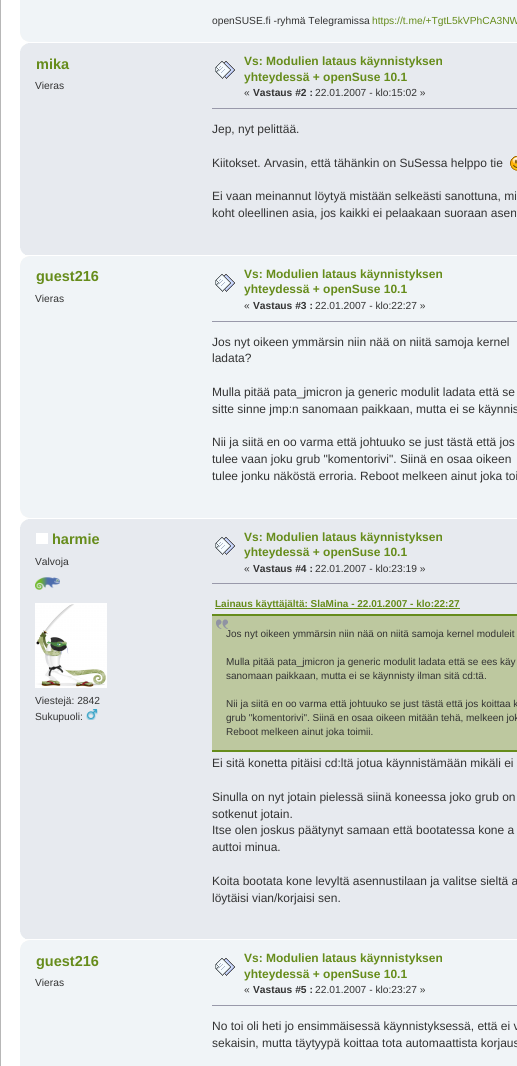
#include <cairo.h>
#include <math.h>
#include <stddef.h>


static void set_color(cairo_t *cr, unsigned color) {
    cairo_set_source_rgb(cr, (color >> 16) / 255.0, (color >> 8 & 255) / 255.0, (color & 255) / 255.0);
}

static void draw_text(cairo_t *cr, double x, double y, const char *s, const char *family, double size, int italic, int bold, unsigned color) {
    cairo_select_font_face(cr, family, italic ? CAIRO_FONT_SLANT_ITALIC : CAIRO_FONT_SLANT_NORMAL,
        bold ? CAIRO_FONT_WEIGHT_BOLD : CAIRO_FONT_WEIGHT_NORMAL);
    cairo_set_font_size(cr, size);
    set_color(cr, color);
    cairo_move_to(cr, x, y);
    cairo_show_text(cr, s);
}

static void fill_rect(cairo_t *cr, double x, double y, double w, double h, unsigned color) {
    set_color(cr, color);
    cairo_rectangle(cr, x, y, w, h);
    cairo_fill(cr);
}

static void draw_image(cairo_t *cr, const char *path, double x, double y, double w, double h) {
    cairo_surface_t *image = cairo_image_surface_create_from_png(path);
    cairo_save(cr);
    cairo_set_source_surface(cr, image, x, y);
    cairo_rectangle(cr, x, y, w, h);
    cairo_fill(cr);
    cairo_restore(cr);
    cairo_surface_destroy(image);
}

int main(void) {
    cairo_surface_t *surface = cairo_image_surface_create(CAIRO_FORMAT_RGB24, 517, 1066);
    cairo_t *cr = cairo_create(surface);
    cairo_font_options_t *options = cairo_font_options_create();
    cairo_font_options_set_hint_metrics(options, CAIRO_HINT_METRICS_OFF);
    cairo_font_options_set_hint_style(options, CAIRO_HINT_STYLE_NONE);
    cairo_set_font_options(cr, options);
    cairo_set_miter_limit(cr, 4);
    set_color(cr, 0xFFFFFF);
    cairo_paint(cr);
    fill_rect(cr, 0, 0, 1, 1066, 0xB7B7B7);
    fill_rect(cr, 20, 0, 497, 42, 0xF0F4F7);
    draw_text(cr, 212, 24, "openSUSE.fi -ryhmä Telegramissa", "Liberation Sans", 10.25, 0, 0, 0x333333);
    draw_text(cr, 372, 24, "https://t.me/+TgtL5kVPhCA3NW", "Liberation Sans", 10.25, 0, 0, 0x668C1B);
    draw_image(cr, "assets/img1.png", 20, 33, 9, 9);
    fill_rect(cr, 20, 43, 497, 212, 0xE7EAEF);
    draw_image(cr, "assets/img2.png", 20, 43, 8, 8);
    draw_text(cr, 36, 69, "mika", "Liberation Sans", 14.5, 0, 1, 0x668C1B);
    draw_text(cr, 35, 89, "Vieras", "Liberation Sans", 10.25, 0, 0, 0x333333);
    draw_image(cr, "assets/img3.png", 215, 61, 20, 18);
    draw_text(cr, 244, 65, "Vs: Modulien lataus käynnistyksen", "Liberation Sans", 12, 0, 1, 0x668C1B);
    draw_text(cr, 244, 81, "yhteydessä + openSuse 10.1", "Liberation Sans", 12, 0, 1, 0x668C1B);
    draw_text(cr, 244, 96, "«", "Liberation Sans", 10.25, 0, 0, 0x333333);
    draw_text(cr, 253, 96, "Vastaus #2 :", "Liberation Sans", 10.25, 0, 1, 0x333333);
    draw_text(cr, 315, 96, "22.01.2007 - klo:15:02 »", "Liberation Sans", 10.25, 0, 0, 0x333333);
    fill_rect(cr, 212, 108, 305, 1, 0x9999AA);
    draw_text(cr, 212, 133, "Jep, nyt pelittää.", "Liberation Sans", 12, 0, 0, 0x333333);
    draw_text(cr, 212, 167, "Kiitokset. Arvasin, että tähänkin on SuSessa helppo tie", "Liberation Sans", 12, 0, 0, 0x333333);
    draw_image(cr, "assets/img4.png", 510, 156, 7, 15);
    draw_text(cr, 212, 200, "Ei vaan meinannut löytyä mistään selkeästi sanottuna, mi", "Liberation Sans", 12, 0, 0, 0x333333);
    draw_text(cr, 212, 217, "koht oleellinen asia, jos kaikki ei pelaakaan suoraan asen", "Liberation Sans", 12, 0, 0, 0x333333);
    draw_image(cr, "assets/img5.png", 20, 248, 5, 7);
    fill_rect(cr, 20, 256, 497, 262, 0xF0F4F7);
    draw_image(cr, "assets/img6.png", 20, 256, 9, 9);
    draw_text(cr, 36, 281, "guest216", "Liberation Sans", 14.5, 0, 1, 0x668C1B);
    draw_text(cr, 35, 302, "Vieras", "Liberation Sans", 10.25, 0, 0, 0x333333);
    draw_image(cr, "assets/img7.png", 215, 274, 20, 18);
    draw_text(cr, 244, 278, "Vs: Modulien lataus käynnistyksen", "Liberation Sans", 12, 0, 1, 0x668C1B);
    draw_text(cr, 244, 293, "yhteydessä + openSuse 10.1", "Liberation Sans", 12, 0, 1, 0x668C1B);
    draw_text(cr, 244, 309, "«", "Liberation Sans", 10.25, 0, 0, 0x333333);
    draw_text(cr, 253, 309, "Vastaus #3 :", "Liberation Sans", 10.25, 0, 1, 0x333333);
    draw_text(cr, 315, 309, "22.01.2007 - klo:22:27 »", "Liberation Sans", 10.25, 0, 0, 0x333333);
    fill_rect(cr, 212, 321, 305, 1, 0x9999AA);
    draw_text(cr, 212, 346, "Jos nyt oikeen ymmärsin niin nää on niitä samoja kernel", "Liberation Sans", 12, 0, 0, 0x333333);
    draw_text(cr, 212, 362, "ladata?", "Liberation Sans", 12, 0, 0, 0x333333);
    draw_text(cr, 212, 396, "Mulla pitää pata_jmicron ja generic modulit ladata että se", "Liberation Sans", 12, 0, 0, 0x333333);
    draw_text(cr, 212, 413, "sitte sinne jmp:n sanomaan paikkaan, mutta ei se käynnis", "Liberation Sans", 12, 0, 0, 0x333333);
    draw_text(cr, 212, 446, "Nii ja siitä en oo varma että johtuuko se just tästä että jos", "Liberation Sans", 12, 0, 0, 0x333333);
    draw_text(cr, 212, 463, "tulee vaan joku grub \"komentorivi\". Siinä en osaa oikeen", "Liberation Sans", 12, 0, 0, 0x333333);
    draw_text(cr, 212, 480, "tulee jonku näköstä erroria. Reboot melkeen ainut joka toi", "Liberation Sans", 12, 0, 0, 0x333333);
    draw_image(cr, "assets/img1.png", 20, 509, 9, 9);
    fill_rect(cr, 20, 519, 497, 420, 0xE7EAEF);
    draw_image(cr, "assets/img2.png", 20, 519, 8, 8);
    fill_rect(cr, 36, 533, 12, 11, 0xFFFFFF);
    draw_text(cr, 52, 544, "harmie", "Liberation Sans", 14.5, 0, 1, 0x668C1B);
    draw_text(cr, 35, 565, "Valvoja", "Liberation Sans", 10.25, 0, 0, 0x333333);
    draw_image(cr, "assets/img8.png", 35, 577, 25, 13);
    draw_image(cr, "assets/img9.png", 35, 603, 72, 85);
    draw_text(cr, 35, 704, "Viestejä: 2842", "Liberation Sans", 10.25, 0, 0, 0x333333);
    draw_text(cr, 35, 720, "Sukupuoli:", "Liberation Sans", 10.25, 0, 0, 0x333333);
    draw_image(cr, "assets/img10.png", 86, 709, 12, 11);
    draw_image(cr, "assets/img3.png", 215, 537, 20, 18);
    draw_text(cr, 244, 541, "Vs: Modulien lataus käynnistyksen", "Liberation Sans", 12, 0, 1, 0x668C1B);
    draw_text(cr, 244, 556, "yhteydessä + openSuse 10.1", "Liberation Sans", 12, 0, 1, 0x668C1B);
    draw_text(cr, 244, 572, "«", "Liberation Sans", 10.25, 0, 0, 0x333333);
    draw_text(cr, 253, 572, "Vastaus #4 :", "Liberation Sans", 10.25, 0, 1, 0x333333);
    draw_text(cr, 315, 572, "22.01.2007 - klo:23:19 »", "Liberation Sans", 10.25, 0, 0, 0x333333);
    fill_rect(cr, 212, 583, 305, 1, 0x9999AA);
    fill_rect(cr, 215, 608, 245, 1, 0x668C1B);
    draw_text(cr, 215, 607, "Lainaus käyttäjältä: SlaMina - 22.01.2007 - klo:22:27", "Liberation Sans", 10, 0, 1, 0x668C1B);
    fill_rect(cr, 212, 616, 305, 134, 0xBDC89F);
    draw_image(cr, "assets/img11.png", 216, 619, 12, 10);
    fill_rect(cr, 212, 614, 305, 2, 0x668C1B);
    fill_rect(cr, 212, 750, 305, 2, 0x668C1B);
    draw_text(cr, 226, 637, "Jos nyt oikeen ymmärsin niin nää on niitä samoja kernel moduleit", "Liberation Sans", 10, 0, 0, 0x333333);
    draw_text(cr, 226, 665, "Mulla pitää pata_jmicron ja generic modulit ladata että se ees käy", "Liberation Sans", 10, 0, 0, 0x333333);
    draw_text(cr, 226, 679, "sanomaan paikkaan, mutta ei se käynnisty ilman sitä cd:tä.", "Liberation Sans", 10, 0, 0, 0x333333);
    draw_text(cr, 226, 707, "Nii ja siitä en oo varma että johtuuko se just tästä että jos koittaa k", "Liberation Sans", 10, 0, 0, 0x333333);
    draw_text(cr, 226, 721, "grub \"komentorivi\". Siinä en osaa oikeen mitään tehä, melkeen jok", "Liberation Sans", 10, 0, 0, 0x333333);
    draw_text(cr, 226, 735, "Reboot melkeen ainut joka toimii.", "Liberation Sans", 10, 0, 0, 0x333333);
    draw_text(cr, 212, 767, "Ei sitä konetta pitäisi cd:ltä jotua käynnistämään mikäli ei", "Liberation Sans", 12, 0, 0, 0x333333);
    draw_text(cr, 212, 801, "Sinulla on nyt jotain pielessä siinä koneessa joko grub on", "Liberation Sans", 12, 0, 0, 0x333333);
    draw_text(cr, 212, 818, "sotkenut jotain.", "Liberation Sans", 12, 0, 0, 0x333333);
    draw_text(cr, 212, 834, "Itse olen joskus päätynyt samaan että bootatessa kone a", "Liberation Sans", 12, 0, 0, 0x333333);
    draw_text(cr, 212, 851, "auttoi minua.", "Liberation Sans", 12, 0, 0, 0x333333);
    draw_text(cr, 212, 885, "Koita bootata kone levyltä asennustilaan ja valitse sieltä a", "Liberation Sans", 12, 0, 0, 0x333333);
    draw_text(cr, 212, 902, "löytäisi vian/korjaisi sen.", "Liberation Sans", 12, 0, 0, 0x333333);
    draw_image(cr, "assets/img5.png", 20, 932, 5, 7);
    fill_rect(cr, 20, 940, 497, 126, 0xF0F4F7);
    draw_image(cr, "assets/img6.png", 20, 940, 9, 9);
    draw_text(cr, 36, 966, "guest216", "Liberation Sans", 14.5, 0, 1, 0x668C1B);
    draw_text(cr, 35, 986, "Vieras", "Liberation Sans", 10.25, 0, 0, 0x333333);
    draw_image(cr, "assets/img7.png", 215, 958, 20, 18);
    draw_text(cr, 244, 962, "Vs: Modulien lataus käynnistyksen", "Liberation Sans", 12, 0, 1, 0x668C1B);
    draw_text(cr, 244, 978, "yhteydessä + openSuse 10.1", "Liberation Sans", 12, 0, 1, 0x668C1B);
    draw_text(cr, 244, 993, "«", "Liberation Sans", 10.25, 0, 0, 0x333333);
    draw_text(cr, 253, 993, "Vastaus #5 :", "Liberation Sans", 10.25, 0, 1, 0x333333);
    draw_text(cr, 315, 993, "22.01.2007 - klo:23:27 »", "Liberation Sans", 10.25, 0, 0, 0x333333);
    fill_rect(cr, 212, 1005, 305, 1, 0x9999AA);
    draw_text(cr, 212, 1030, "No toi oli heti jo ensimmäisessä käynnistyksessä, että ei v", "Liberation Sans", 12, 0, 0, 0x333333);
    draw_text(cr, 212, 1047, "sekaisin, mutta täytyypä koittaa tota automaattista korjaus", "Liberation Sans", 12, 0, 0, 0x333333);
    cairo_surface_write_to_png(surface, "output.png");
    cairo_font_options_destroy(options);
    cairo_destroy(cr);
    cairo_surface_destroy(surface);
    return 0;
}
